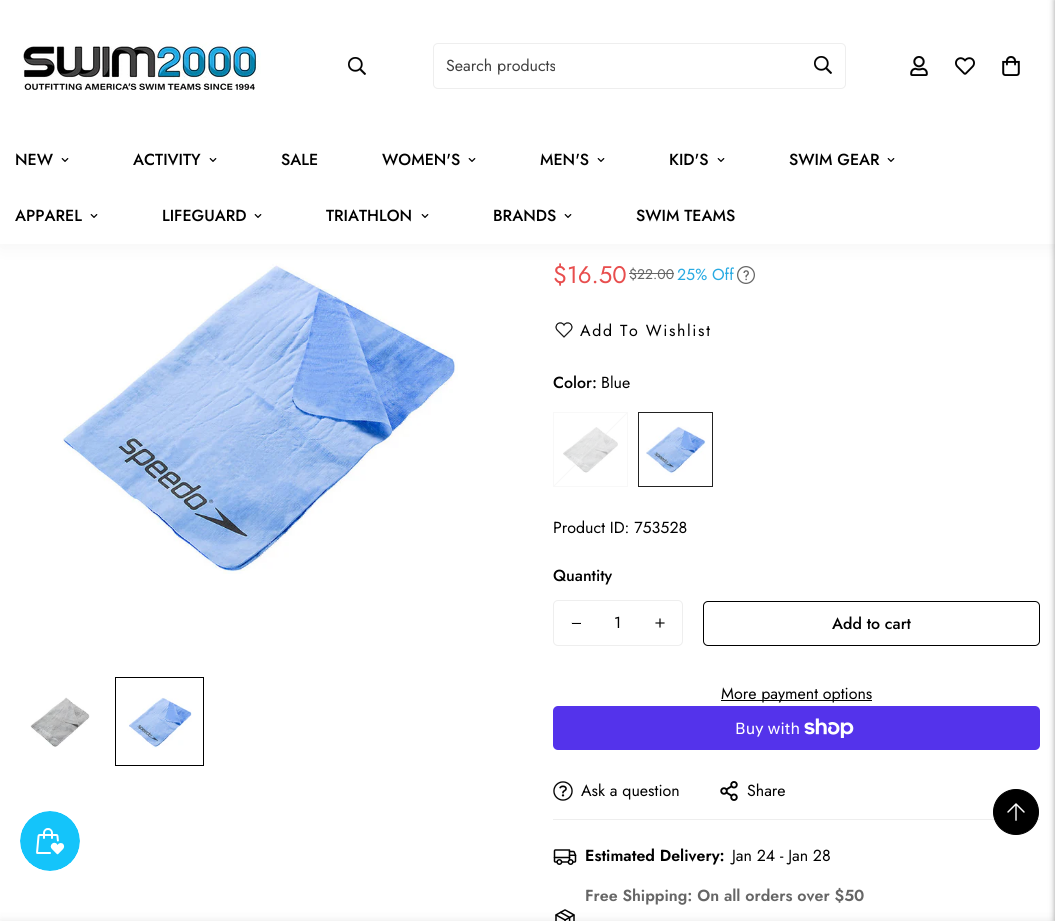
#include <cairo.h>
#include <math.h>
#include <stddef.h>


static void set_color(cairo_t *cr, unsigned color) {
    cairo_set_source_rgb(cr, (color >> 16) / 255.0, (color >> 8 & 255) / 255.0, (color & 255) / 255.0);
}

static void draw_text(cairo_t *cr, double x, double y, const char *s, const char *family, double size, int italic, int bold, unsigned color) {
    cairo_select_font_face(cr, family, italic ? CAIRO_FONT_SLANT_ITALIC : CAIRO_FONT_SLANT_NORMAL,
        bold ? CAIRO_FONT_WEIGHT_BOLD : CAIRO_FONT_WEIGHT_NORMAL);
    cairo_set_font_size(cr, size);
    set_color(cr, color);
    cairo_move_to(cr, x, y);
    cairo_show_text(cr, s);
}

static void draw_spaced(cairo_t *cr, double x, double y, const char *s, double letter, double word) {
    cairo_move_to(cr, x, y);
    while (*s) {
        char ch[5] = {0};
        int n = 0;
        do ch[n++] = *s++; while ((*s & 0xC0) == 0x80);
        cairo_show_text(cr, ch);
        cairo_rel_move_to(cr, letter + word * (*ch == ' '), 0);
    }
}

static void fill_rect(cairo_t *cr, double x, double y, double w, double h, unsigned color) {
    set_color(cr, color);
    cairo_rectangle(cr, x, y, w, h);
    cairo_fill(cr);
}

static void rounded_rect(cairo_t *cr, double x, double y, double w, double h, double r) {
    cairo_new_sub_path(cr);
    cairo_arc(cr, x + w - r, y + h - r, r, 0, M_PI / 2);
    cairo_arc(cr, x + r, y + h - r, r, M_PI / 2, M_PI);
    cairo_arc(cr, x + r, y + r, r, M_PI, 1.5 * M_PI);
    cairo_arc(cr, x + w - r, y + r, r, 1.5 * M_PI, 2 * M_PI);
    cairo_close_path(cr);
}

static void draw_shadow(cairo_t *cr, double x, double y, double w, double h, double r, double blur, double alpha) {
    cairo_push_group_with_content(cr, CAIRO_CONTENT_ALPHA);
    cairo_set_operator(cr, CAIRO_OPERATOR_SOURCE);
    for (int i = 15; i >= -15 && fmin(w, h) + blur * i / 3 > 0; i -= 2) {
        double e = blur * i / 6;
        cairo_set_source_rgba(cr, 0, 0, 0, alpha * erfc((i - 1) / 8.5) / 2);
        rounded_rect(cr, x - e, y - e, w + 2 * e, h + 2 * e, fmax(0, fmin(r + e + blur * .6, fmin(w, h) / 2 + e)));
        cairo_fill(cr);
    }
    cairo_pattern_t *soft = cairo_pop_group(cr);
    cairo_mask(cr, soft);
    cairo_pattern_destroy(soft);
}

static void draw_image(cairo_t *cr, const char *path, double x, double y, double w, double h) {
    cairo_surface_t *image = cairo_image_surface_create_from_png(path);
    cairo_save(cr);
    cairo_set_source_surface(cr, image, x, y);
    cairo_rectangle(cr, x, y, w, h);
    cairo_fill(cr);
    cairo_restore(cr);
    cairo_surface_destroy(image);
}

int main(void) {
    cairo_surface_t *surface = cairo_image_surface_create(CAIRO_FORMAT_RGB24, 1055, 921);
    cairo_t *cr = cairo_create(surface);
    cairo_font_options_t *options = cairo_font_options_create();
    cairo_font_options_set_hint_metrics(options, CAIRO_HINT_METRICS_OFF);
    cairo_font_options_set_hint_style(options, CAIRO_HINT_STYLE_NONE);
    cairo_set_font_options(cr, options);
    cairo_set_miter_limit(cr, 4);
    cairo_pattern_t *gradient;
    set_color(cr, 0xFFFFFF);
    cairo_paint(cr);
    draw_image(cr, "assets/img8.png", 62, 263, 396, 311);
    fill_rect(cr, 629, 273, 45, 1, 0x666666);
    draw_image(cr, "assets/img11.png", 737, 266, 18, 18);
    set_color(cr, 0x000000);
    draw_shadow(cr, 0, 4, 1055, 244, 0, 10, 0.04);
    fill_rect(cr, 0, 0, 1055, 244, 0xFFFFFF);
    draw_image(cr, "assets/img1.png", 23, 42, 238, 48);
    draw_image(cr, "assets/img2.png", 348, 57, 18, 18);
    rounded_rect(cr, 433.5, 43.5, 412, 45, 4.5);
    set_color(cr, 0xEEEEEE);
    cairo_set_line_width(cr, 1);
    cairo_stroke(cr);
    draw_text(cr, 446, 71, "Search products", "Jost", 16, 0, 0, 0x404040);
    draw_image(cr, "assets/img2.png", 814, 56, 18, 18);
    draw_image(cr, "assets/img3.png", 910, 56, 18, 20);
    draw_image(cr, "assets/img4.png", 955, 57, 20, 18);
    draw_image(cr, "assets/img5.png", 1002, 56, 18, 20);
    draw_text(cr, 15, 165, "NEW", "Jost Medium", 16, 0, 0, 0x000000);
    draw_image(cr, "assets/img6.png", 61, 158, 8, 4);
    draw_text(cr, 133, 165, "ACTIVITY", "Jost Medium", 16, 0, 0, 0x000000);
    draw_image(cr, "assets/img6.png", 209, 158, 8, 4);
    draw_text(cr, 281, 165, "SALE", "Jost Medium", 16, 0, 0, 0x000000);
    draw_text(cr, 382, 165, "WOMEN'S", "Jost Medium", 16, 0, 0, 0x000000);
    draw_image(cr, "assets/img6.png", 468, 158, 8, 4);
    draw_text(cr, 540, 165, "MEN'S", "Jost Medium", 16, 0, 0, 0x000000);
    draw_image(cr, "assets/img6.png", 597, 158, 8, 4);
    draw_text(cr, 669, 165, "KID'S", "Jost Medium", 16, 0, 0, 0x000000);
    draw_image(cr, "assets/img6.png", 717, 158, 8, 4);
    draw_text(cr, 789, 165, "SWIM GEAR", "Jost Medium", 16, 0, 0, 0x000000);
    draw_image(cr, "assets/img6.png", 887, 158, 8, 4);
    draw_text(cr, 15, 221, "APPAREL", "Jost Medium", 16, 0, 0, 0x000000);
    draw_image(cr, "assets/img6.png", 90, 214, 8, 4);
    draw_text(cr, 162, 221, "LIFEGUARD", "Jost Medium", 16, 0, 0, 0x000000);
    draw_image(cr, "assets/img6.png", 254, 214, 8, 4);
    draw_text(cr, 326, 221, "TRIATHLON", "Jost Medium", 16, 0, 0, 0x000000);
    draw_image(cr, "assets/img6.png", 421, 214, 8, 4);
    draw_text(cr, 493, 221, "BRANDS", "Jost Medium", 16, 0, 0, 0x000000);
    draw_image(cr, "assets/img6.png", 564, 214, 8, 4);
    draw_text(cr, 636, 221, "SWIM TEAMS", "Jost Medium", 16, 0, 0, 0x000000);
    set_color(cr, 0x000000);
    draw_shadow(cr, 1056, 0, 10, 921, 0, 3.5, 0.5);
    draw_image(cr, "assets/img7.png", 20, 811, 60, 60);
    draw_image(cr, "assets/img9.png", 30, 697, 60, 50);
    cairo_rectangle(cr, 115.5, 677.5, 88, 88);
    set_color(cr, 0x000000);
    cairo_stroke(cr);
    draw_image(cr, "assets/img10.png", 127, 697, 65, 51);
    draw_text(cr, 553, 283, "$16.50", "Jost", 24, 0, 0, 0xE84E4E);
    draw_text(cr, 629, 279, "$22.00", "Jost", 14, 0, 0, 0x666666);
    draw_text(cr, 677, 280, "25% Off", "Jost", 16, 0, 0, 0x28AAE2);
    draw_image(cr, "assets/img12.png", 555, 322, 18, 16);
    set_color(cr, 0x000000);
    draw_spaced(cr, 580, 336, "Add To Wishlist", 1.6, 0);
    draw_text(cr, 553, 388, "Color:", "Jost Medium", 16, 0, 0, 0x000000);
    draw_text(cr, 601, 388, "Blue", "Jost", 16, 0, 0, 0x000000);
    draw_image(cr, "assets/img13.png", 563, 427, 55, 46);
    cairo_rectangle(cr, 553.5, 412.5, 74, 74);
    set_color(cr, 0xF8F8F8);
    cairo_stroke(cr);
    gradient = cairo_pattern_create_linear(554, 413, 627, 486);
    cairo_pattern_add_color_stop_rgba(gradient, 0.49, 0.933, 0.933, 0.933, 0);
    cairo_pattern_add_color_stop_rgba(gradient, 0.5, 0.933, 0.933, 0.933, 0.4);
    cairo_pattern_add_color_stop_rgba(gradient, 0.51, 0.933, 0.933, 0.933, 0);
    cairo_set_source(cr, gradient);
    cairo_pattern_destroy(gradient);
    cairo_rectangle(cr, 554, 413, 73, 73);
    cairo_fill(cr);
    draw_image(cr, "assets/img14.png", 646, 426, 60, 50);
    cairo_rectangle(cr, 638.5, 412.5, 74, 74);
    set_color(cr, 0x222222);
    cairo_stroke(cr);
    draw_text(cr, 553, 533, "Product ID: 753528", "Jost", 16, 0, 0, 0x000000);
    draw_text(cr, 553, 581, "Quantity", "Jost Medium", 16, 0, 0, 0x000000);
    rounded_rect(cr, 553.5, 600.5, 129, 45, 4.5);
    set_color(cr, 0xEEEEEE);
    cairo_stroke(cr);
    draw_image(cr, "assets/img15.png", 571, 622, 10, 2);
    draw_text(cr, 614, 628, "1", "Jost", 16, 0, 0, 0x000000);
    draw_image(cr, "assets/img16.png", 655, 618, 10, 10);
    rounded_rect(cr, 703.5, 601.5, 336, 44, 4.5);
    cairo_stroke(cr);
    draw_text(cr, 832, 629, "Add to cart", "Jost Medium", 16, 0, 0, 0x000000);
    fill_rect(cr, 721, 700, 151, 1, 0x000000);
    draw_text(cr, 721, 699, "More payment options", "Jost", 16, 0, 0, 0x000000);
    set_color(cr, 0x5433EB);
    rounded_rect(cr, 553, 706, 487, 44, 5);
    cairo_fill(cr);
    draw_text(cr, 735, 734, "Buy with", "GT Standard", 16, 0, 0, 0xFFFFFF);
    draw_image(cr, "assets/img17.png", 804, 718, 50, 20);
    fill_rect(cr, 553, 819, 487, 1, 0xEEEEEE);
    draw_image(cr, "assets/img18.png", 553, 781, 20, 20);
    draw_text(cr, 581, 796, "Ask a question", "Jost", 16, 0, 0, 0x000000);
    draw_image(cr, "assets/img19.png", 720, 781, 18, 20);
    draw_text(cr, 747, 796, "Share", "Jost", 16, 0, 0, 0x000000);
    draw_image(cr, "assets/img20.png", 553, 849, 24, 16);
    draw_text(cr, 585, 861, "Estimated Delivery:", "Jost SemiBold", 16, 0, 0, 0x000000);
    draw_text(cr, 732, 861, "Jan 24 - Jan 28", "Jost", 16, 0, 0, 0x000000);
    draw_text(cr, 585, 901, "Free Shipping: On all orders over $50", "Jost SemiBold", 16, 0, 0, 0x666666);
    draw_image(cr, "assets/img21.png", 555, 909, 20, 12);
    set_color(cr, 0x000000);
    draw_shadow(cr, 0, 921, 1055, 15, 0, 5, 0.09);
    set_color(cr, 0x000000);
    cairo_arc(cr, 1016, 812, 22.5, 0, 2 * M_PI);
    cairo_fill_preserve(cr);
    cairo_stroke(cr);
    draw_image(cr, "assets/img22.png", 1007, 803, 18, 18);
    cairo_surface_write_to_png(surface, "output.png");
    cairo_font_options_destroy(options);
    cairo_destroy(cr);
    cairo_surface_destroy(surface);
    return 0;
}
